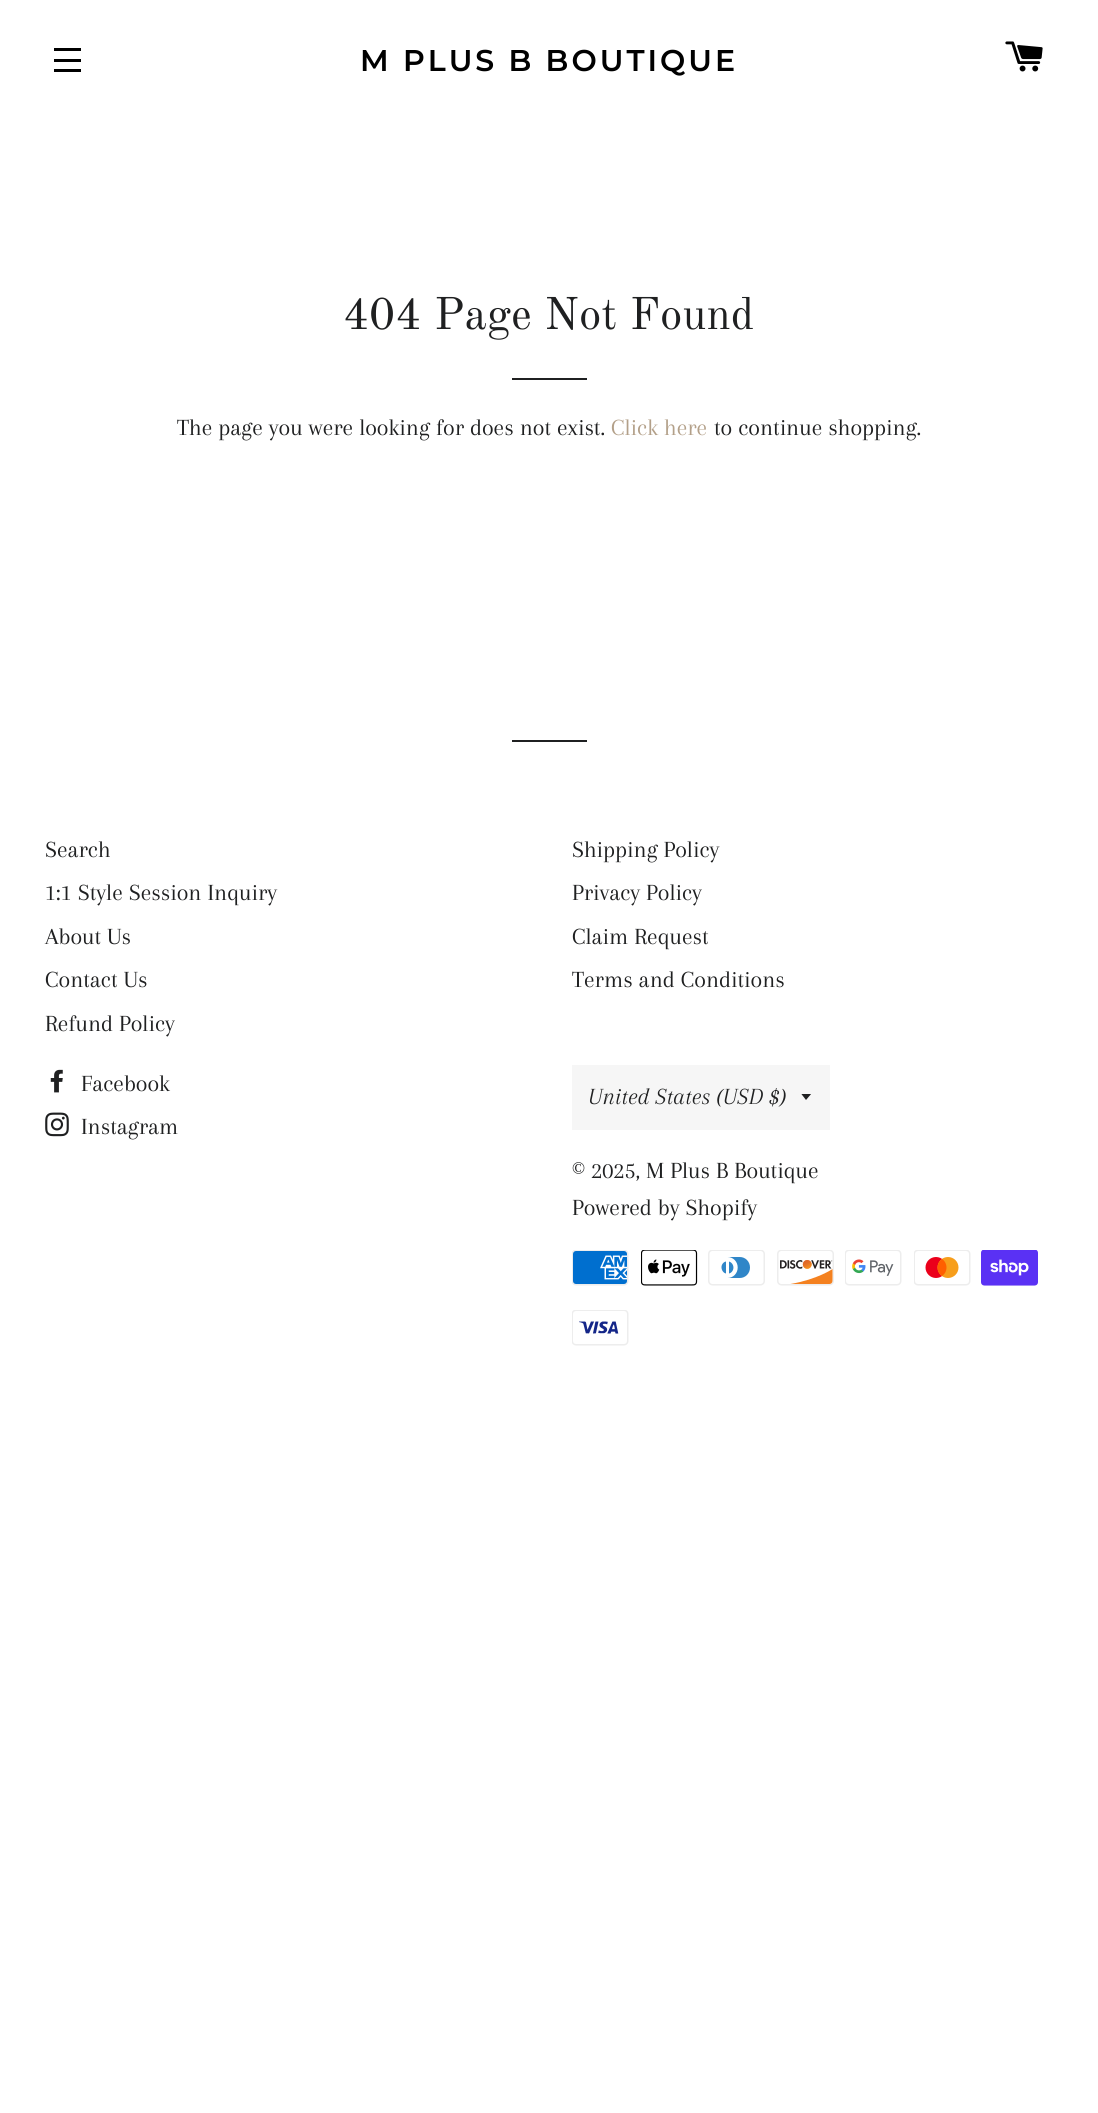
#include <cairo.h>
#include <math.h>
#include <stddef.h>


static void set_color(cairo_t *cr, unsigned color) {
    cairo_set_source_rgb(cr, (color >> 16) / 255.0, (color >> 8 & 255) / 255.0, (color & 255) / 255.0);
}

static void draw_text(cairo_t *cr, double x, double y, const char *s, const char *family, double size, int italic, int bold, unsigned color) {
    cairo_select_font_face(cr, family, italic ? CAIRO_FONT_SLANT_ITALIC : CAIRO_FONT_SLANT_NORMAL,
        bold ? CAIRO_FONT_WEIGHT_BOLD : CAIRO_FONT_WEIGHT_NORMAL);
    cairo_set_font_size(cr, size);
    set_color(cr, color);
    cairo_move_to(cr, x, y);
    cairo_show_text(cr, s);
}

static void draw_spaced(cairo_t *cr, double x, double y, const char *s, double letter, double word) {
    cairo_move_to(cr, x, y);
    while (*s) {
        char ch[5] = {0};
        int n = 0;
        do ch[n++] = *s++; while ((*s & 0xC0) == 0x80);
        cairo_show_text(cr, ch);
        cairo_rel_move_to(cr, letter + word * (*ch == ' '), 0);
    }
}

static void fill_rect(cairo_t *cr, double x, double y, double w, double h, unsigned color) {
    set_color(cr, color);
    cairo_rectangle(cr, x, y, w, h);
    cairo_fill(cr);
}

static void draw_image(cairo_t *cr, const char *path, double x, double y, double w, double h) {
    cairo_surface_t *image = cairo_image_surface_create_from_png(path);
    cairo_save(cr);
    cairo_set_source_surface(cr, image, x, y);
    cairo_rectangle(cr, x, y, w, h);
    cairo_fill(cr);
    cairo_restore(cr);
    cairo_surface_destroy(image);
}

int main(void) {
    cairo_surface_t *surface = cairo_image_surface_create(CAIRO_FORMAT_RGB24, 1098, 2113);
    cairo_t *cr = cairo_create(surface);
    cairo_font_options_t *options = cairo_font_options_create();
    cairo_font_options_set_hint_metrics(options, CAIRO_HINT_METRICS_OFF);
    cairo_font_options_set_hint_style(options, CAIRO_HINT_STYLE_NONE);
    cairo_set_font_options(cr, options);
    cairo_set_miter_limit(cr, 4);
    set_color(cr, 0xFFFFFF);
    cairo_paint(cr);
    fill_rect(cr, 54, 48, 27, 3, 0x000000);
    fill_rect(cr, 54, 59, 27, 3, 0x000000);
    fill_rect(cr, 54, 69, 27, 3, 0x000000);
    cairo_select_font_face(cr, "Montserrat SemiBold", CAIRO_FONT_SLANT_NORMAL, CAIRO_FONT_WEIGHT_NORMAL);
    cairo_set_font_size(cr, 30);
    draw_spaced(cr, 360, 71, "M PLUS B BOUTIQUE", 3, 0);
    draw_image(cr, "assets/img1.png", 1005, 41, 38, 31);
    draw_text(cr, 343, 329, "404 Page Not Found", "Old Standard TT", 45, 0, 0, 0x1F2021);
    fill_rect(cr, 512, 378, 75, 2, 0x1F2021);
    draw_text(cr, 177, 435, "The page you were looking for does not exist.", "Arapey", 24, 0, 0, 0x1F2021);
    draw_text(cr, 611, 435, "Click here", "Arapey", 24, 0, 0, 0xB3A089);
    draw_text(cr, 714, 435, "to continue shopping.", "Arapey", 24, 0, 0, 0x1F2021);
    fill_rect(cr, 512, 740, 75, 2, 0x1F2021);
    draw_text(cr, 45, 857, "Search", "Arapey", 24, 0, 0, 0x1F2021);
    draw_text(cr, 45, 900, "1:1 Style Session Inquiry", "Arapey", 24, 0, 0, 0x1F2021);
    draw_text(cr, 45, 944, "About Us", "Arapey", 24, 0, 0, 0x1F2021);
    draw_text(cr, 45, 987, "Contact Us", "Arapey", 24, 0, 0, 0x1F2021);
    draw_text(cr, 45, 1031, "Refund Policy", "Arapey", 24, 0, 0, 0x1F2021);
    draw_text(cr, 572, 857, "Shipping Policy", "Arapey", 24, 0, 0, 0x1F2021);
    draw_text(cr, 572, 900, "Privacy Policy", "Arapey", 24, 0, 0, 0x1F2021);
    draw_text(cr, 572, 944, "Claim Request", "Arapey", 24, 0, 0, 0x1F2021);
    draw_text(cr, 572, 987, "Terms and Conditions", "Arapey", 24, 0, 0, 0x1F2021);
    draw_image(cr, "assets/img2.png", 50, 1069, 13, 24);
    draw_text(cr, 81, 1091, "Facebook", "Arapey", 24, 0, 0, 0x1F2021);
    draw_image(cr, "assets/img3.png", 45, 1112, 24, 25);
    draw_text(cr, 81, 1134, "Instagram", "Arapey", 24, 0, 0, 0x1F2021);
    fill_rect(cr, 572, 1065, 258, 65, 0xF6F6F6);
    cairo_save(cr);
    cairo_rectangle(cr, 801, 1094, 12, 7);
    cairo_clip(cr);
    set_color(cr, 0x1F2021);
    cairo_new_path(cr);
    cairo_move_to(cr, 801, 1093.5);
    cairo_line_to(cr, 806, 1100);
    cairo_line_to(cr, 811.5, 1093.5);
    cairo_close_path(cr);
    cairo_fill(cr);
    cairo_restore(cr);
    draw_text(cr, 588, 1104, "United States (USD $)", "Arapey", 24, 1, 0, 0x1F2021);
    draw_text(cr, 572, 1178, "© 2025, M Plus B Boutique", "Arapey", 24, 0, 0, 0x1F2021);
    draw_text(cr, 572, 1215, "Powered by Shopify", "Arapey", 24, 0, 0, 0x1F2021);
    draw_image(cr, "assets/img4.png", 572, 1250, 57, 36);
    draw_image(cr, "assets/img5.png", 641, 1250, 57, 36);
    draw_image(cr, "assets/img6.png", 708, 1250, 57, 36);
    draw_image(cr, "assets/img7.png", 777, 1250, 57, 36);
    draw_image(cr, "assets/img8.png", 845, 1250, 57, 36);
    draw_image(cr, "assets/img9.png", 914, 1250, 57, 36);
    draw_image(cr, "assets/img10.png", 981, 1250, 57, 36);
    draw_image(cr, "assets/img11.png", 572, 1310, 57, 36);
    cairo_surface_write_to_png(surface, "output.png");
    cairo_font_options_destroy(options);
    cairo_destroy(cr);
    cairo_surface_destroy(surface);
    return 0;
}
